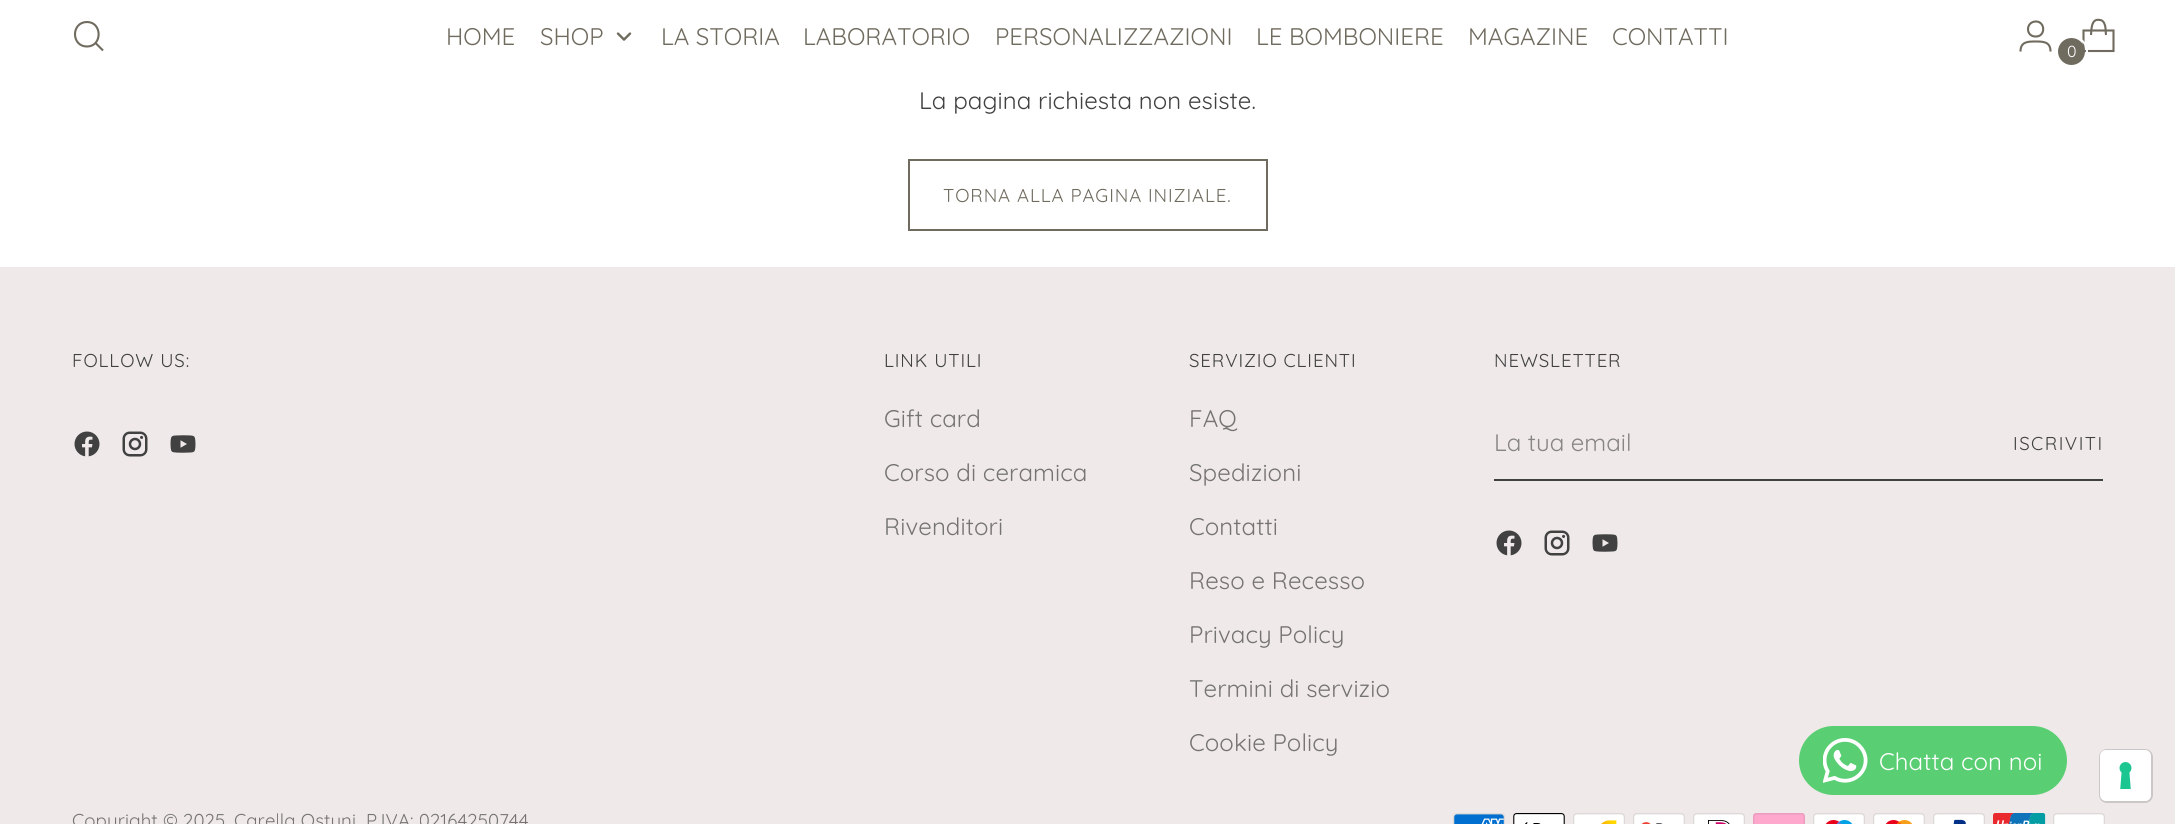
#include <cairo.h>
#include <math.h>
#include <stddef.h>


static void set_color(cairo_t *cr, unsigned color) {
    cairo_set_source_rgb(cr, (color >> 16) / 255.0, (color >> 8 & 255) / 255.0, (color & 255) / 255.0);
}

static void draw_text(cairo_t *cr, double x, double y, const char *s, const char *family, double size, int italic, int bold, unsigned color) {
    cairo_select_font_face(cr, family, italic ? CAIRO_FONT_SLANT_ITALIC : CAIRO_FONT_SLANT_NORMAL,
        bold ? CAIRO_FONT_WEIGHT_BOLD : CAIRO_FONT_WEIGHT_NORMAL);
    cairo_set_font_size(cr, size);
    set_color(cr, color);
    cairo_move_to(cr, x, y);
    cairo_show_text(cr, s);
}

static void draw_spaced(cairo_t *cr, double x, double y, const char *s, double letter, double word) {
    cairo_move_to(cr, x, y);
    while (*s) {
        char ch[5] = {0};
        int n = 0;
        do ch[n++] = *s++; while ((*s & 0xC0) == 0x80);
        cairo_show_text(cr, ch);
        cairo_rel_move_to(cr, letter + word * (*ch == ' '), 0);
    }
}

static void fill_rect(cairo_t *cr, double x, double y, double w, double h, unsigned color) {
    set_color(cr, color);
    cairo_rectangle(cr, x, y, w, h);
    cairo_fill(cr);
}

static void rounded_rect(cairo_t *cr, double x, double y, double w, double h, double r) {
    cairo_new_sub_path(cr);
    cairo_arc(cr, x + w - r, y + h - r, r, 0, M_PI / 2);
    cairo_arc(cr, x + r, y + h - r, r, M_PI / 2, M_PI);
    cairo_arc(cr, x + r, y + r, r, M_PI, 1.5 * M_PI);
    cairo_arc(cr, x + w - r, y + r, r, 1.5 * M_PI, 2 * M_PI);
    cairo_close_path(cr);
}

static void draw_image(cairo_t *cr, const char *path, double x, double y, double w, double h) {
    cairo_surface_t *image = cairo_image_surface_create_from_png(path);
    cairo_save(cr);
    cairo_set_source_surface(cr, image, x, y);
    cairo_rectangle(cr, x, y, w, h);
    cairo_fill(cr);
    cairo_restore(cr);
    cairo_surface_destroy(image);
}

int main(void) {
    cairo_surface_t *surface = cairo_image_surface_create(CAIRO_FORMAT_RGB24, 2175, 824);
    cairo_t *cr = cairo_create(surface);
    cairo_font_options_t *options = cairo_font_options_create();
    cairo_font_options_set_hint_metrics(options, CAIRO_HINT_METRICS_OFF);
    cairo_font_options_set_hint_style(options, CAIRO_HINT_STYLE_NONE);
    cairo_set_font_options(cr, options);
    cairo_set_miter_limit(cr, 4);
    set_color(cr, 0xFFFFFF);
    cairo_paint(cr);
    cairo_new_path(cr);
    cairo_move_to(cr, 87, 46.5);
    cairo_curve_to(cr, 102.5, 46.5, 102.5, 22, 87, 22);
    cairo_curve_to(cr, 71, 22, 71, 46.5, 87, 46.5);
    cairo_close_path(cr);
    set_color(cr, 0x706B5F);
    cairo_set_line_width(cr, 2.1);
    cairo_set_line_cap(cr, CAIRO_LINE_CAP_ROUND);
    cairo_stroke(cr);
    cairo_new_path(cr);
    cairo_move_to(cr, 95.5, 43);
    cairo_line_to(cr, 103, 50.5);
    cairo_set_line_cap(cr, CAIRO_LINE_CAP_BUTT);
    cairo_stroke(cr);
    draw_text(cr, 446, 45, "HOME", "Quicksand", 24, 0, 0, 0x706B5F);
    draw_text(cr, 540, 45, "SHOP", "Quicksand", 24, 0, 0, 0x706B5F);
    draw_image(cr, "assets/img1.png", 616, 32, 16, 9);
    draw_text(cr, 661, 45, "LA STORIA", "Quicksand", 24, 0, 0, 0x706B5F);
    draw_text(cr, 803, 45, "LABORATORIO", "Quicksand", 24, 0, 0, 0x706B5F);
    draw_text(cr, 995, 45, "PERSONALIZZAZIONI", "Quicksand", 24, 0, 0, 0x706B5F);
    draw_text(cr, 1256, 45, "LE BOMBONIERE", "Quicksand", 24, 0, 0, 0x706B5F);
    draw_text(cr, 1468, 45, "MAGAZINE", "Quicksand", 24, 0, 0, 0x706B5F);
    draw_text(cr, 1612, 45, "CONTATTI", "Quicksand", 24, 0, 0, 0x706B5F);
    cairo_new_path(cr);
    cairo_move_to(cr, 2035.5, 36.5);
    cairo_curve_to(cr, 2046, 37, 2045.5, 21, 2035.5, 21.5);
    cairo_curve_to(cr, 2025.5, 22, 2025.5, 36.5, 2035.5, 36.5);
    cairo_close_path(cr);
    cairo_move_to(cr, 2020.5, 51.5);
    cairo_curve_to(cr, 2020.5, 41.5, 2028, 41.5, 2035.5, 41.5);
    cairo_curve_to(cr, 2043, 41.5, 2050.5, 41.5, 2050.5, 51.5);
    cairo_stroke(cr);
    cairo_new_path(cr);
    cairo_move_to(cr, 2106, 35);
    cairo_curve_to(cr, 2105.5, 31.5, 2106, 27.5, 2104.5, 24);
    cairo_curve_to(cr, 2104, 22, 2102, 20, 2100, 20);
    cairo_curve_to(cr, 2091, 18, 2091.5, 29.5, 2091, 35);
    cairo_set_line_join(cr, CAIRO_LINE_JOIN_BEVEL);
    cairo_stroke(cr);
    cairo_new_path(cr);
    cairo_move_to(cr, 2113.5, 51);
    cairo_line_to(cr, 2113.5, 30.5);
    cairo_line_to(cr, 2083.5, 30.5);
    cairo_line_to(cr, 2083.5, 51);
    cairo_close_path(cr);
    cairo_set_line_join(cr, CAIRO_LINE_JOIN_MITER);
    cairo_stroke(cr);
    rounded_rect(cr, 2058, 37, 29, 30, 14.5);
    set_color(cr, 0xFFFFFF);
    cairo_set_line_width(cr, 2);
    cairo_stroke(cr);
    set_color(cr, 0x706B5F);
    cairo_arc(cr, 2071.5, 51.5, 13.5, 0, 2 * M_PI);
    cairo_fill(cr);
    cairo_set_font_size(cr, 16);
    set_color(cr, 0xFFFFFF);
    draw_spaced(cr, 2067, 57, "0", 0.1, 0);
    cairo_set_font_size(cr, 24);
    set_color(cr, 0x414141);
    draw_spaced(cr, 919, 109, "La pagina richiesta non esiste.", 0.1, 0);
    cairo_rectangle(cr, 909, 160, 358, 70);
    set_color(cr, 0x706B5F);
    cairo_stroke(cr);
    cairo_set_font_size(cr, 18.6);
    draw_spaced(cr, 943, 202, "TORNA ALLA PAGINA INIZIALE.", 0.9, 0);
    fill_rect(cr, 0, 267, 2175, 557, 0xEFEAE9);
    set_color(cr, 0x414141);
    draw_spaced(cr, 72, 367, "FOLLOW US:", 0.9, 0);
    draw_image(cr, "assets/img2.png", 74, 431, 26, 26);
    draw_image(cr, "assets/img3.png", 122, 431, 26, 26);
    draw_image(cr, "assets/img4.png", 170, 435, 26, 18);
    draw_spaced(cr, 884, 367, "LINK UTILI", 0.9, 0);
    cairo_set_font_size(cr, 24);
    set_color(cr, 0x757473);
    draw_spaced(cr, 884, 427, "Gift card", 0.1, 0);
    draw_spaced(cr, 884, 481, "Corso di ceramica", 0.1, 0);
    draw_spaced(cr, 884, 535, "Rivenditori", 0.1, 0);
    cairo_set_font_size(cr, 18.6);
    set_color(cr, 0x414141);
    draw_spaced(cr, 1189, 367, "SERVIZIO CLIENTI", 0.9, 0);
    cairo_set_font_size(cr, 24);
    set_color(cr, 0x757473);
    draw_spaced(cr, 1189, 427, "FAQ", 0.1, 0);
    draw_spaced(cr, 1189, 481, "Spedizioni", 0.1, 0);
    draw_spaced(cr, 1189, 535, "Contatti", 0.1, 0);
    draw_spaced(cr, 1189, 589, "Reso e Recesso", 0.1, 0);
    draw_spaced(cr, 1189, 643, "Privacy Policy", 0.1, 0);
    draw_spaced(cr, 1189, 697, "Termini di servizio", 0.1, 0);
    draw_spaced(cr, 1189, 751, "Cookie Policy", 0.1, 0);
    cairo_set_font_size(cr, 18.6);
    set_color(cr, 0x414141);
    draw_spaced(cr, 1494, 367, "NEWSLETTER", 0.9, 0);
    fill_rect(cr, 1494, 479, 609, 2, 0x414141);
    draw_text(cr, 1494, 451, "La tua email", "Quicksand", 24, 0, 0, 0x878584);
    cairo_set_font_size(cr, 18.6);
    set_color(cr, 0x414141);
    draw_spaced(cr, 2013, 450, "ISCRIVITI", 1.5, 0);
    draw_image(cr, "assets/img2.png", 1496, 530, 26, 26);
    draw_image(cr, "assets/img3.png", 1544, 530, 26, 26);
    draw_image(cr, "assets/img4.png", 1592, 534, 26, 18);
    set_color(cr, 0x757473);
    draw_spaced(cr, 72, 827, "Copyright © 2025", 0.1, 0);
    draw_spaced(cr, 234, 827, "Carella Ostuni", 0.1, 0);
    draw_spaced(cr, 366, 827, "P.IVA: 02164250744", 0.1, 0);
    draw_image(cr, "assets/img5.png", 1453, 813, 52, 11);
    draw_image(cr, "assets/img6.png", 1513, 813, 52, 11);
    draw_image(cr, "assets/img7.png", 1573, 813, 52, 11);
    draw_image(cr, "assets/img8.png", 1633, 813, 52, 11);
    draw_image(cr, "assets/img9.png", 1693, 813, 52, 11);
    draw_image(cr, "assets/img10.png", 1753, 813, 52, 11);
    draw_image(cr, "assets/img11.png", 1813, 813, 52, 11);
    draw_image(cr, "assets/img12.png", 1873, 813, 52, 11);
    draw_image(cr, "assets/img13.png", 1933, 813, 52, 11);
    draw_image(cr, "assets/img14.png", 1993, 813, 53, 11);
    draw_image(cr, "assets/img15.png", 2053, 813, 52, 11);
    rounded_rect(cr, 2100, 750, 52, 52, 7);
    set_color(cr, 0xCBC7C6);
    cairo_stroke(cr);
    set_color(cr, 0xFFFFFF);
    rounded_rect(cr, 2100, 750, 51, 51, 6);
    cairo_fill(cr);
    draw_image(cr, "assets/img16.png", 2119, 762, 13, 27);
    set_color(cr, 0x59CE72);
    rounded_rect(cr, 1799, 726, 268, 69, 34.5);
    cairo_fill(cr);
    draw_image(cr, "assets/img17.png", 1823, 738, 45, 45);
    cairo_set_font_size(cr, 24);
    set_color(cr, 0xFFFFFF);
    draw_spaced(cr, 1879, 770, "Chatta con noi", 0.1, 0);
    cairo_surface_write_to_png(surface, "output.png");
    cairo_font_options_destroy(options);
    cairo_destroy(cr);
    cairo_surface_destroy(surface);
    return 0;
}
